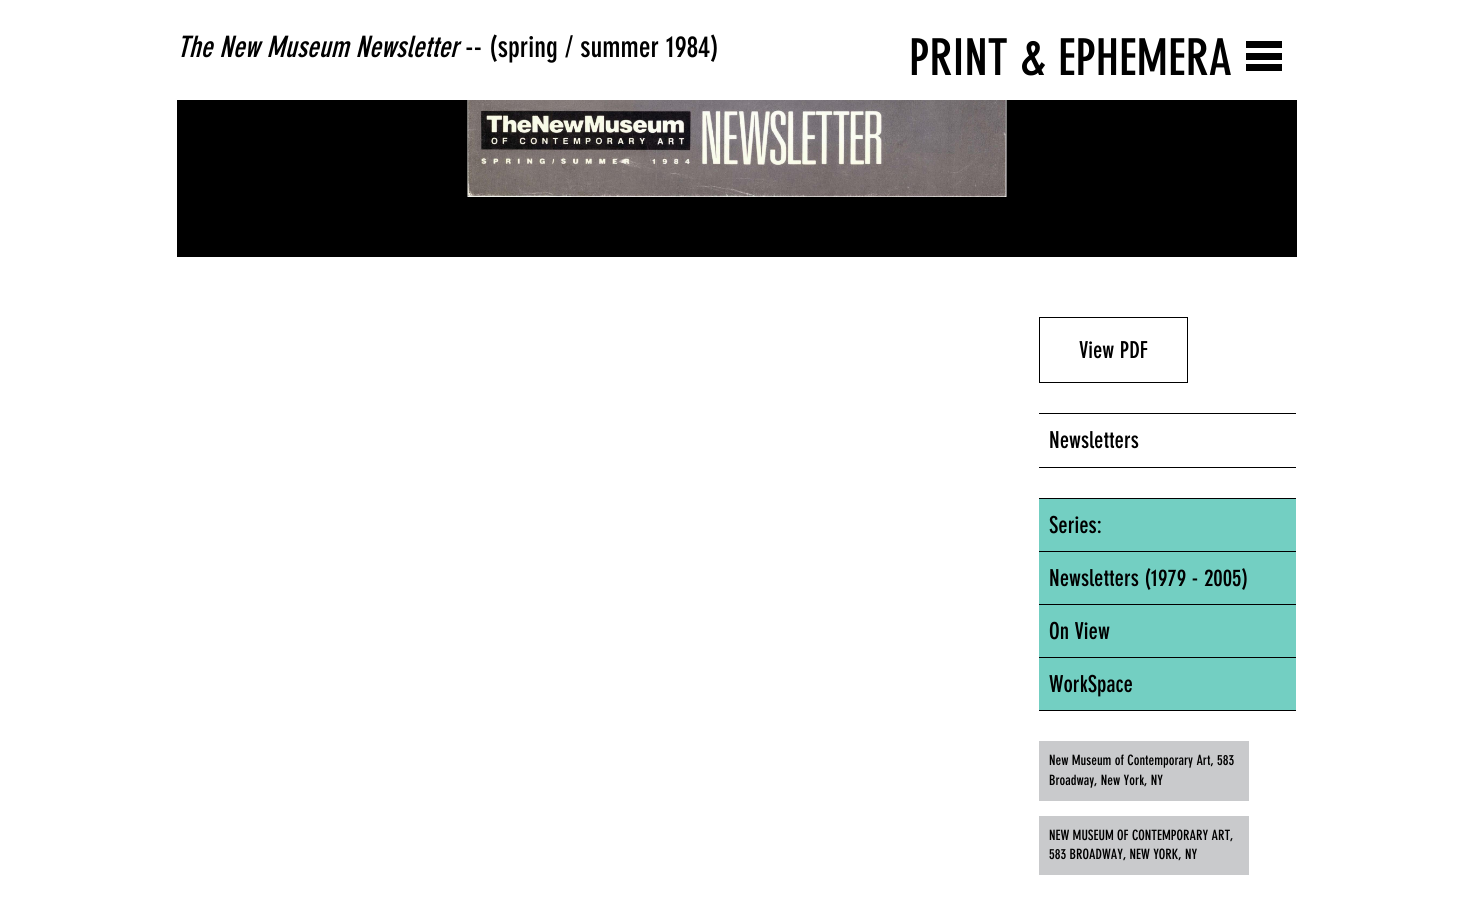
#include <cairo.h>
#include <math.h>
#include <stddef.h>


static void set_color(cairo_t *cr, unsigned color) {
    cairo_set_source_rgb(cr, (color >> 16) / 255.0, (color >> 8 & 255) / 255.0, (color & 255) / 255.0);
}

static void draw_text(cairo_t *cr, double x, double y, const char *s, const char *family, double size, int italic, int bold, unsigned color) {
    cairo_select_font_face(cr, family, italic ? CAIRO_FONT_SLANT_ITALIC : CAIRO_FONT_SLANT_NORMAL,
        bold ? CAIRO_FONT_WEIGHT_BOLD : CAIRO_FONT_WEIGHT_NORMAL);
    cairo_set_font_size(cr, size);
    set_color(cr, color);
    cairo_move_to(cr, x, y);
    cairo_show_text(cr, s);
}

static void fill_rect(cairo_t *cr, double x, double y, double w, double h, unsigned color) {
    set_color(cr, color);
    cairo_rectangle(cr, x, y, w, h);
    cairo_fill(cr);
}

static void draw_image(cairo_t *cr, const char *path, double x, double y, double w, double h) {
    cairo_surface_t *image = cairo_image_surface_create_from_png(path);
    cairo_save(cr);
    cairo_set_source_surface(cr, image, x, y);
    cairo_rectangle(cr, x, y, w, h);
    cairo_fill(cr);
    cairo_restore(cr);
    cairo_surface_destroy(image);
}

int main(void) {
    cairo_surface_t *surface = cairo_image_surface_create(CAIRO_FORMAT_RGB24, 1473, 923);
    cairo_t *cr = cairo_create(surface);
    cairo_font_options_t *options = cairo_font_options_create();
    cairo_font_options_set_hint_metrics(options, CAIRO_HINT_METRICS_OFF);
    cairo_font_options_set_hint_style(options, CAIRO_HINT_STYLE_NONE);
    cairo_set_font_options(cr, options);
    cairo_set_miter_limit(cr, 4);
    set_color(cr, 0xFFFFFF);
    cairo_paint(cr);
    draw_text(cr, 177, 57, "The New Museum Newsletter", "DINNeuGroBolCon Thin", 29, 1, 0, 0x000000);
    draw_text(cr, 465, 57, "-- (spring / summer 1984)", "DINNeuGroBolCon Thin", 29, 0, 0, 0x000000);
    draw_text(cr, 909, 75, "PRINT & EPHEMERA", "DINNeuGroBolCon Thin", 50, 0, 0, 0x000000);
    fill_rect(cr, 1246, 41, 36, 7, 0x000000);
    fill_rect(cr, 1246, 53, 36, 7, 0x000000);
    fill_rect(cr, 1246, 64, 36, 7, 0x000000);
    fill_rect(cr, 177, 100, 1120, 157, 0x000000);
    draw_image(cr, "assets/img1.png", 467, 100, 540, 97);
    cairo_rectangle(cr, 1039.5, 317.5, 148, 65);
    cairo_set_line_width(cr, 1);
    cairo_stroke(cr);
    draw_text(cr, 1079, 358, "View PDF", "DINNeuGroBolCon Thin", 23, 0, 0, 0x000000);
    fill_rect(cr, 1039, 413, 257, 1, 0x000000);
    fill_rect(cr, 1039, 467, 257, 1, 0x000000);
    draw_text(cr, 1049, 448, "Newsletters", "DINNeuGroBolCon Thin", 23, 0, 0, 0x000000);
    fill_rect(cr, 1039, 499, 257, 52, 0x73CFC2);
    fill_rect(cr, 1039, 498, 257, 1, 0x000000);
    draw_text(cr, 1049, 533, "Series:", "DINNeuGroBolCon Thin", 23, 0, 0, 0x000000);
    fill_rect(cr, 1039, 552, 257, 52, 0x73CFC2);
    fill_rect(cr, 1039, 551, 257, 1, 0x000000);
    draw_text(cr, 1049, 586, "Newsletters (1979 - 2005)", "DINNeuGroBolCon Thin", 23, 0, 0, 0x000000);
    fill_rect(cr, 1039, 605, 257, 52, 0x73CFC2);
    fill_rect(cr, 1039, 604, 257, 1, 0x000000);
    draw_text(cr, 1049, 639, "On View", "DINNeuGroBolCon Thin", 23, 0, 0, 0x000000);
    fill_rect(cr, 1039, 658, 257, 52, 0x73CFC2);
    fill_rect(cr, 1039, 657, 257, 1, 0x000000);
    fill_rect(cr, 1039, 710, 257, 1, 0x000000);
    draw_text(cr, 1049, 692, "WorkSpace", "DINNeuGroBolCon Thin", 23, 0, 0, 0x000000);
    fill_rect(cr, 1039, 741, 210, 60, 0xC9CACC);
    draw_text(cr, 1049, 765, "New Museum of Contemporary Art, 583", "DINNeuGroBolCon Thin", 14, 0, 0, 0x000000);
    draw_text(cr, 1049, 785, "Broadway, New York, NY", "DINNeuGroBolCon Thin", 14, 0, 0, 0x000000);
    fill_rect(cr, 1039, 816, 210, 59, 0xC9CACC);
    draw_text(cr, 1049, 840, "NEW MUSEUM OF CONTEMPORARY ART,", "DINNeuGroBolCon Thin", 14, 0, 0, 0x000000);
    draw_text(cr, 1049, 859, "583 BROADWAY, NEW YORK, NY", "DINNeuGroBolCon Thin", 14, 0, 0, 0x000000);
    cairo_surface_write_to_png(surface, "output.png");
    cairo_font_options_destroy(options);
    cairo_destroy(cr);
    cairo_surface_destroy(surface);
    return 0;
}
